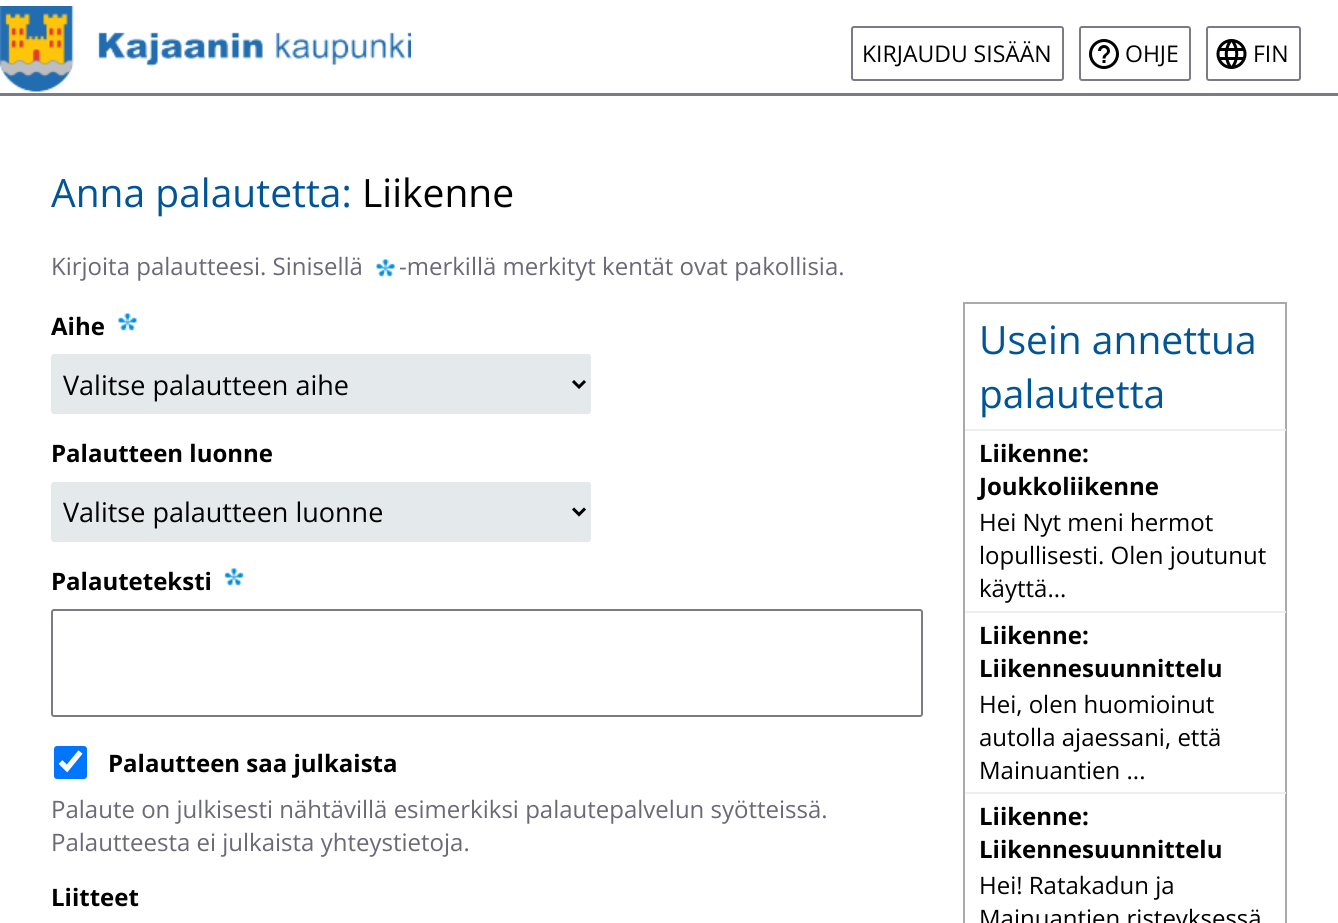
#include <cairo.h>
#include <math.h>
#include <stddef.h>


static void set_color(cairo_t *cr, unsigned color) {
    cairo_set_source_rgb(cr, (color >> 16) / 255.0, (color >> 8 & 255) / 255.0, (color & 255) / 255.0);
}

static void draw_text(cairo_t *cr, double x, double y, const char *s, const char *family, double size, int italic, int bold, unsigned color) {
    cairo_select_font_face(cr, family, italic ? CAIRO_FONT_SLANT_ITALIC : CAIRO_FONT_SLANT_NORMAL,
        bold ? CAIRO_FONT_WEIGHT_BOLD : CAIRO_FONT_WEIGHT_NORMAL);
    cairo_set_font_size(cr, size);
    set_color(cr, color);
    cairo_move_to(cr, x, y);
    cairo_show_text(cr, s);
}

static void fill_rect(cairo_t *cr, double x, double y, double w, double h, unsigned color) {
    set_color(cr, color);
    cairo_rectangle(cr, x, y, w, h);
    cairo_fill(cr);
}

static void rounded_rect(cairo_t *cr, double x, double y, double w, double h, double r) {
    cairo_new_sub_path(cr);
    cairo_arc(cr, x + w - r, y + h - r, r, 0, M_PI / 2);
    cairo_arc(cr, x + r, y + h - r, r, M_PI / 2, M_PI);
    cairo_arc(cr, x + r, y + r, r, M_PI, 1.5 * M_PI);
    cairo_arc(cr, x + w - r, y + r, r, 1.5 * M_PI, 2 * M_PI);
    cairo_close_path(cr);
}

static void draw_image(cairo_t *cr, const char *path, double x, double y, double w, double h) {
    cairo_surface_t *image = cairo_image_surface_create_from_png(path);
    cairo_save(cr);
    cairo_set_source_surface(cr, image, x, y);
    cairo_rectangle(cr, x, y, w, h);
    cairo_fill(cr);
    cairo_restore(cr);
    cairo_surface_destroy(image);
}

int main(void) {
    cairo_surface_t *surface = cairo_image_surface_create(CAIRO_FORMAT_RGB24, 1338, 923);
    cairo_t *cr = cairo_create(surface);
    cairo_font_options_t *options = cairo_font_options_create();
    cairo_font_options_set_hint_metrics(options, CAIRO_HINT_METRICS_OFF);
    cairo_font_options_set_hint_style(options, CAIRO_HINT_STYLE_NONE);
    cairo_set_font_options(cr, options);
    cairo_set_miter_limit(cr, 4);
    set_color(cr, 0xFFFFFF);
    cairo_paint(cr);
    fill_rect(cr, 0, 93, 1338, 3, 0x7B7A86);
    draw_image(cr, "assets/img1.png", 0, 6, 411, 86);
    rounded_rect(cr, 852, 27, 211, 53, 2);
    cairo_stroke(cr);
    draw_text(cr, 862, 62, "KIRJAUDU SISÄÄN", "Open Sans", 23, 0, 0, 0x000000);
    draw_image(cr, "assets/img2.png", 1089, 39, 30, 30);
    rounded_rect(cr, 1080, 27, 110, 53, 2);
    set_color(cr, 0x7B7A86);
    cairo_stroke(cr);
    draw_text(cr, 1125, 62, "OHJE", "Open Sans", 23, 0, 0, 0x000000);
    draw_image(cr, "assets/img3.png", 1216, 39, 31, 30);
    rounded_rect(cr, 1207, 27, 93, 53, 2);
    set_color(cr, 0x7B7A86);
    cairo_stroke(cr);
    draw_text(cr, 1253, 62, "FIN", "Open Sans", 23, 0, 0, 0x000000);
    draw_text(cr, 51, 207, "Anna palautetta:", "Open Sans", 39, 0, 0, 0x005596);
    draw_text(cr, 362, 207, "Liikenne", "Open Sans", 39, 0, 0, 0x000000);
    draw_text(cr, 51, 275, "Kirjoita palautteesi. Sinisellä", "Open Sans", 24, 0, 0, 0x6A6976);
    draw_image(cr, "assets/img4.png", 376, 259, 19, 18);
    draw_text(cr, 399, 275, "-merkillä merkityt kentät ovat pakollisia.", "Open Sans", 24, 0, 0, 0x6A6976);
    draw_text(cr, 51, 335, "Aihe", "Open Sans", 24, 0, 1, 0x000000);
    draw_image(cr, "assets/img5.png", 118, 313, 19, 18);
    set_color(cr, 0xE4E9EC);
    rounded_rect(cr, 51, 354, 540, 60, 3);
    cairo_fill(cr);
    cairo_new_path(cr);
    cairo_move_to(cr, 573, 381);
    cairo_line_to(cr, 579, 387);
    cairo_line_to(cr, 585, 381);
    set_color(cr, 0x000000);
    cairo_set_line_width(cr, 3);
    cairo_stroke(cr);
    draw_text(cr, 63, 395, "Valitse palautteen aihe", "Open Sans", 27, 0, 0, 0x000000);
    draw_text(cr, 51, 462, "Palautteen luonne", "Open Sans", 24, 0, 1, 0x000000);
    set_color(cr, 0xE4E9EC);
    rounded_rect(cr, 51, 482, 540, 60, 3);
    cairo_fill(cr);
    cairo_new_path(cr);
    cairo_move_to(cr, 573, 508.5);
    cairo_line_to(cr, 579, 514.5);
    cairo_line_to(cr, 585, 508.5);
    set_color(cr, 0x000000);
    cairo_stroke(cr);
    draw_text(cr, 63, 522, "Valitse palautteen luonne", "Open Sans", 27, 0, 0, 0x000000);
    draw_text(cr, 51, 590, "Palauteteksti", "Open Sans", 24, 0, 1, 0x000000);
    draw_image(cr, "assets/img6.png", 224, 568, 20, 18);
    rounded_rect(cr, 52, 610, 870, 106, 2);
    set_color(cr, 0x7B7A86);
    cairo_set_line_width(cr, 2);
    cairo_stroke(cr);
    set_color(cr, 0x0075FF);
    rounded_rect(cr, 54, 746, 33, 33, 3);
    cairo_fill(cr);
    cairo_new_path(cr);
    cairo_move_to(cr, 60.5, 762);
    cairo_line_to(cr, 67, 768.5);
    cairo_line_to(cr, 80.5, 752);
    set_color(cr, 0xFFFFFF);
    cairo_set_line_width(cr, 5.3);
    cairo_stroke(cr);
    draw_text(cr, 108, 772, "Palautteen saa julkaista", "Open Sans", 24, 0, 1, 0x000000);
    draw_text(cr, 51, 818, "Palaute on julkisesti nähtävillä esimerkiksi palautepalvelun syötteissä.", "Open Sans", 24, 0, 0, 0x6A6976);
    draw_text(cr, 51, 851, "Palautteesta ei julkaista yhteystietoja.", "Open Sans", 24, 0, 0, 0x6A6976);
    draw_text(cr, 51, 906, "Liitteet", "Open Sans", 24, 0, 1, 0x000000);
    cairo_rectangle(cr, 964, 303, 322, 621);
    set_color(cr, 0xAAAAAA);
    cairo_set_line_width(cr, 2);
    cairo_stroke(cr);
    draw_text(cr, 979, 354, "Usein annettua", "Open Sans", 39, 0, 0, 0x005596);
    draw_text(cr, 979, 408, "palautetta", "Open Sans", 39, 0, 0, 0x005596);
    fill_rect(cr, 965, 429, 321, 2, 0xEEEEEE);
    draw_text(cr, 979, 462, "Liikenne:", "Open Sans", 24, 0, 1, 0x000000);
    draw_text(cr, 979, 495, "Joukkoliikenne", "Open Sans", 24, 0, 1, 0x000000);
    draw_text(cr, 979, 531, "Hei Nyt meni hermot", "Open Sans", 24, 0, 0, 0x000000);
    draw_text(cr, 979, 564, "lopullisesti. Olen joutunut", "Open Sans", 24, 0, 0, 0x000000);
    draw_text(cr, 979, 597, "käyttä...", "Open Sans", 24, 0, 0, 0x000000);
    fill_rect(cr, 965, 611, 321, 2, 0xEEEEEE);
    draw_text(cr, 979, 644, "Liikenne:", "Open Sans", 24, 0, 1, 0x000000);
    draw_text(cr, 979, 677, "Liikennesuunnittelu", "Open Sans", 24, 0, 1, 0x000000);
    draw_text(cr, 979, 713, "Hei, olen huomioinut", "Open Sans", 24, 0, 0, 0x000000);
    draw_text(cr, 979, 746, "autolla ajaessani, että", "Open Sans", 24, 0, 0, 0x000000);
    draw_text(cr, 979, 779, "Mainuantien ...", "Open Sans", 24, 0, 0, 0x000000);
    fill_rect(cr, 965, 792, 321, 2, 0xEEEEEE);
    draw_text(cr, 979, 825, "Liikenne:", "Open Sans", 24, 0, 1, 0x000000);
    draw_text(cr, 979, 858, "Liikennesuunnittelu", "Open Sans", 24, 0, 1, 0x000000);
    draw_text(cr, 979, 894, "Hei! Ratakadun ja", "Open Sans", 24, 0, 0, 0x000000);
    draw_text(cr, 979, 927, "Mainuantien risteyksessä", "Open Sans", 24, 0, 0, 0x000000);
    cairo_surface_write_to_png(surface, "output.png");
    cairo_font_options_destroy(options);
    cairo_destroy(cr);
    cairo_surface_destroy(surface);
    return 0;
}
